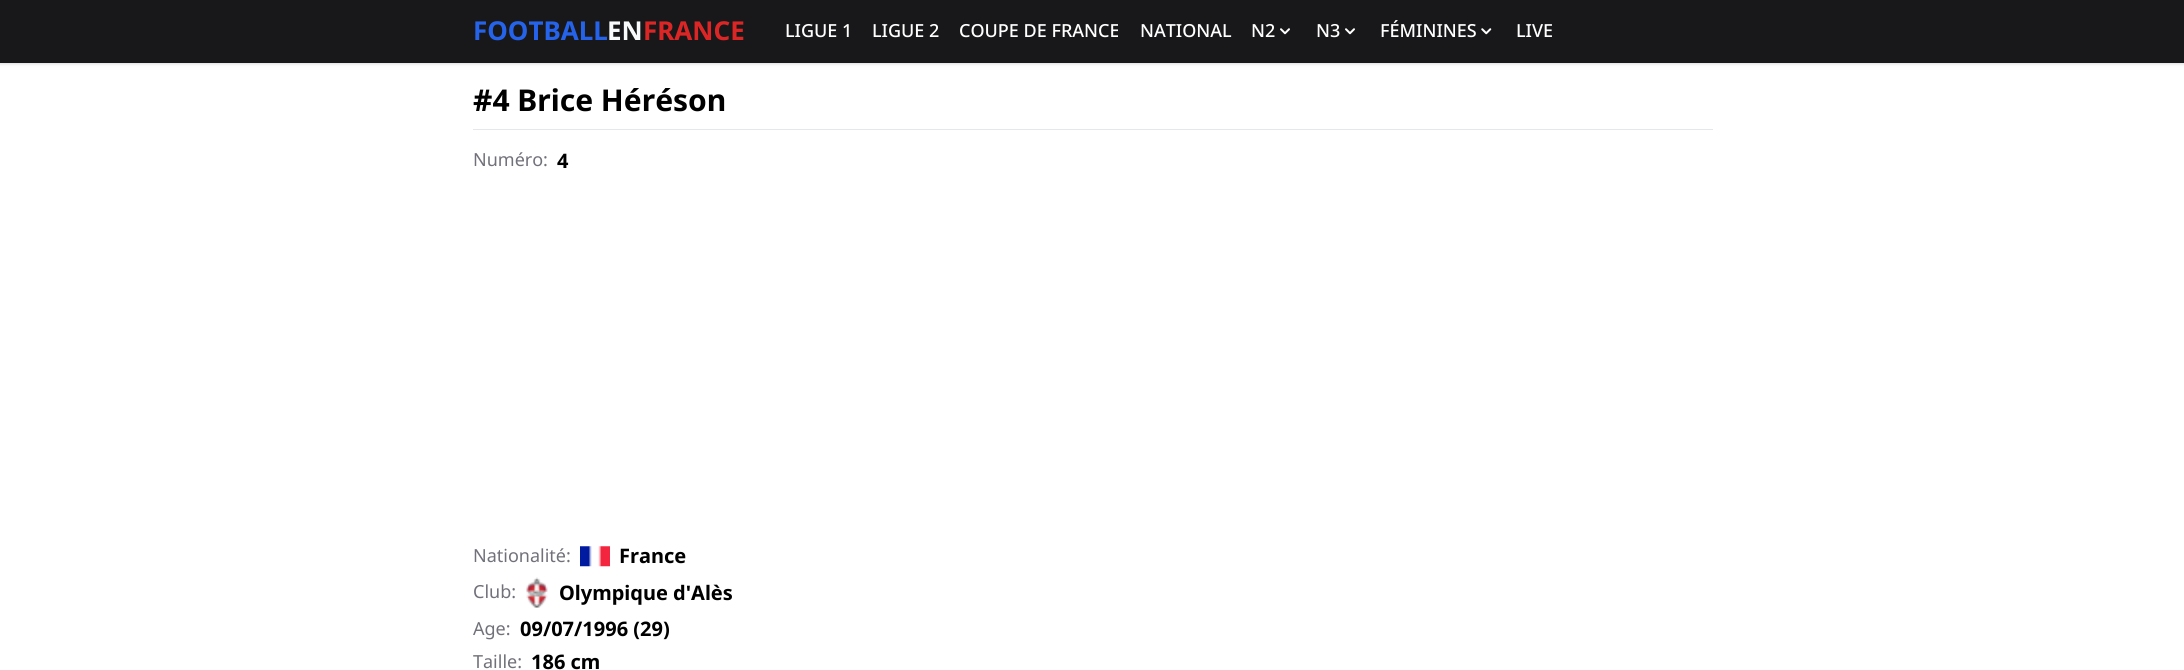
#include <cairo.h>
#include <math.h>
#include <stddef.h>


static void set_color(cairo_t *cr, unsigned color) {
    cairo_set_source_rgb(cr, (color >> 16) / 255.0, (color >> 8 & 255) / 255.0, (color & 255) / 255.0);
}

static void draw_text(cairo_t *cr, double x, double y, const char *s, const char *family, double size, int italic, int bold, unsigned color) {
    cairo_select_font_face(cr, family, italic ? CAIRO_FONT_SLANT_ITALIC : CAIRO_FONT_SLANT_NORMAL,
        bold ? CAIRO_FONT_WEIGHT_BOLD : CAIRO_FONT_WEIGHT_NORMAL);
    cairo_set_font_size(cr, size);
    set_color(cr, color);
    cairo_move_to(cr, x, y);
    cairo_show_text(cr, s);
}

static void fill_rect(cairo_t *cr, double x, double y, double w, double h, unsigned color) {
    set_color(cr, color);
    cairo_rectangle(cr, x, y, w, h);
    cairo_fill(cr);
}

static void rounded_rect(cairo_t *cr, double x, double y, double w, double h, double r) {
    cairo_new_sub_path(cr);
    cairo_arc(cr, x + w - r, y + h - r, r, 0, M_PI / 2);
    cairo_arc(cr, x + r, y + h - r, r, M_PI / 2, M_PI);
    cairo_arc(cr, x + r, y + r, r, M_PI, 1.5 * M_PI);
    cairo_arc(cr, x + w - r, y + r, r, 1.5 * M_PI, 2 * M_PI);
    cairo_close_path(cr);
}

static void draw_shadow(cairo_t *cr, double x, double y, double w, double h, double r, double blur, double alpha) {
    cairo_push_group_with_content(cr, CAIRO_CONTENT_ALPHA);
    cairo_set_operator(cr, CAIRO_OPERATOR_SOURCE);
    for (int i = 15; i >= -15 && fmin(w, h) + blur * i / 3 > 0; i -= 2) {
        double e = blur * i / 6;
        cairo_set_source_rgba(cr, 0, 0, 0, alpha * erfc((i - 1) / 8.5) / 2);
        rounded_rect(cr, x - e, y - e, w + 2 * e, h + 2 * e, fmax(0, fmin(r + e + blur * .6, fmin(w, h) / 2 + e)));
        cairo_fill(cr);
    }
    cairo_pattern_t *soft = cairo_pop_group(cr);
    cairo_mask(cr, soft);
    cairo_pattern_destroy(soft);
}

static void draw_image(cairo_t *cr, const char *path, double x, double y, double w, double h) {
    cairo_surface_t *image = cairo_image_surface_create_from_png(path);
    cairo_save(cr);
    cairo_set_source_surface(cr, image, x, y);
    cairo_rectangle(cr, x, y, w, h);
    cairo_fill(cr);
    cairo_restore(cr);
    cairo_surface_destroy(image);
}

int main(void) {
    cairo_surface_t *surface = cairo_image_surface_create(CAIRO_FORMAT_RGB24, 2184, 670);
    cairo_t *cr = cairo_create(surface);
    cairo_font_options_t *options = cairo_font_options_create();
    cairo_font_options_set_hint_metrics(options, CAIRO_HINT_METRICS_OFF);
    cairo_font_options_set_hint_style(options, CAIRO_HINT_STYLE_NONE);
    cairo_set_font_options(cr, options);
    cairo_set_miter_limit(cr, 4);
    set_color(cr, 0xFFFFFF);
    cairo_paint(cr);
    set_color(cr, 0x000000);
    draw_shadow(cr, 0, 1, 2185, 63, 0, 1, 0.06);
    draw_shadow(cr, 0, 1, 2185, 63, 0, 2, 0.1);
    fill_rect(cr, 0, 0, 2184, 63, 0x18181B);
    draw_text(cr, 473, 40, "FOOTBALL", "Noto Sans", 26, 0, 1, 0x2563EB);
    draw_text(cr, 607, 40, "EN", "Noto Sans", 26, 0, 1, 0xF8FAFC);
    draw_text(cr, 643, 40, "FRANCE", "Noto Sans", 26, 0, 1, 0xDC2626);
    draw_text(cr, 785, 37, "LIGUE 1", "Noto Sans Medium", 18, 0, 0, 0xFFFFFF);
    draw_text(cr, 872, 37, "LIGUE 2", "Noto Sans Medium", 18, 0, 0, 0xFFFFFF);
    draw_text(cr, 959, 37, "COUPE DE FRANCE", "Noto Sans Medium", 18, 0, 0, 0xFFFFFF);
    draw_text(cr, 1140, 37, "NATIONAL", "Noto Sans Medium", 18, 0, 0, 0xFFFFFF);
    draw_text(cr, 1251, 37, "N2", "Noto Sans Medium", 18, 0, 0, 0xFFFFFF);
    draw_image(cr, "assets/img1.png", 1280, 28, 10, 7);
    draw_text(cr, 1316, 37, "N3", "Noto Sans Medium", 18, 0, 0, 0xFFFFFF);
    draw_image(cr, "assets/img1.png", 1345, 28, 10, 7);
    draw_text(cr, 1380, 37, "FÉMININES", "Noto Sans Medium", 18, 0, 0, 0xFFFFFF);
    draw_image(cr, "assets/img2.png", 1481, 28, 11, 7);
    draw_text(cr, 1516, 37, "LIVE", "Noto Sans Medium", 18, 0, 0, 0xFFFFFF);
    fill_rect(cr, 473, 129, 1240, 1, 0xE5E7EB);
    draw_text(cr, 473, 111, "#4 Brice Héréson", "Noto Sans", 30, 0, 1, 0x000000);
    draw_text(cr, 473, 166, "Numéro:", "Noto Sans", 18, 0, 0, 0x71717A);
    draw_text(cr, 557, 168, "4", "Noto Sans", 20, 0, 1, 0x000000);
    draw_text(cr, 473, 562, "Nationalité:", "Noto Sans", 18, 0, 0, 0x71717A);
    draw_image(cr, "assets/img3.png", 580, 546, 30, 21);
    draw_text(cr, 619, 563, "France", "Noto Sans", 20, 0, 1, 0x000000);
    draw_text(cr, 473, 598, "Club:", "Noto Sans", 18, 0, 0, 0x71717A);
    draw_image(cr, "assets/img4.png", 526, 577, 22, 31);
    draw_text(cr, 559, 600, "Olympique d'Alès", "Noto Sans", 20, 0, 1, 0x000000);
    draw_text(cr, 473, 635, "Age:", "Noto Sans", 18, 0, 0, 0x71717A);
    draw_text(cr, 520, 636, "09/07/1996 (29)", "Noto Sans", 20, 0, 1, 0x000000);
    draw_text(cr, 473, 668, "Taille:", "Noto Sans", 18, 0, 0, 0x71717A);
    draw_text(cr, 531, 669, "186 cm", "Noto Sans", 20, 0, 1, 0x000000);
    cairo_surface_write_to_png(surface, "output.png");
    cairo_font_options_destroy(options);
    cairo_destroy(cr);
    cairo_surface_destroy(surface);
    return 0;
}
